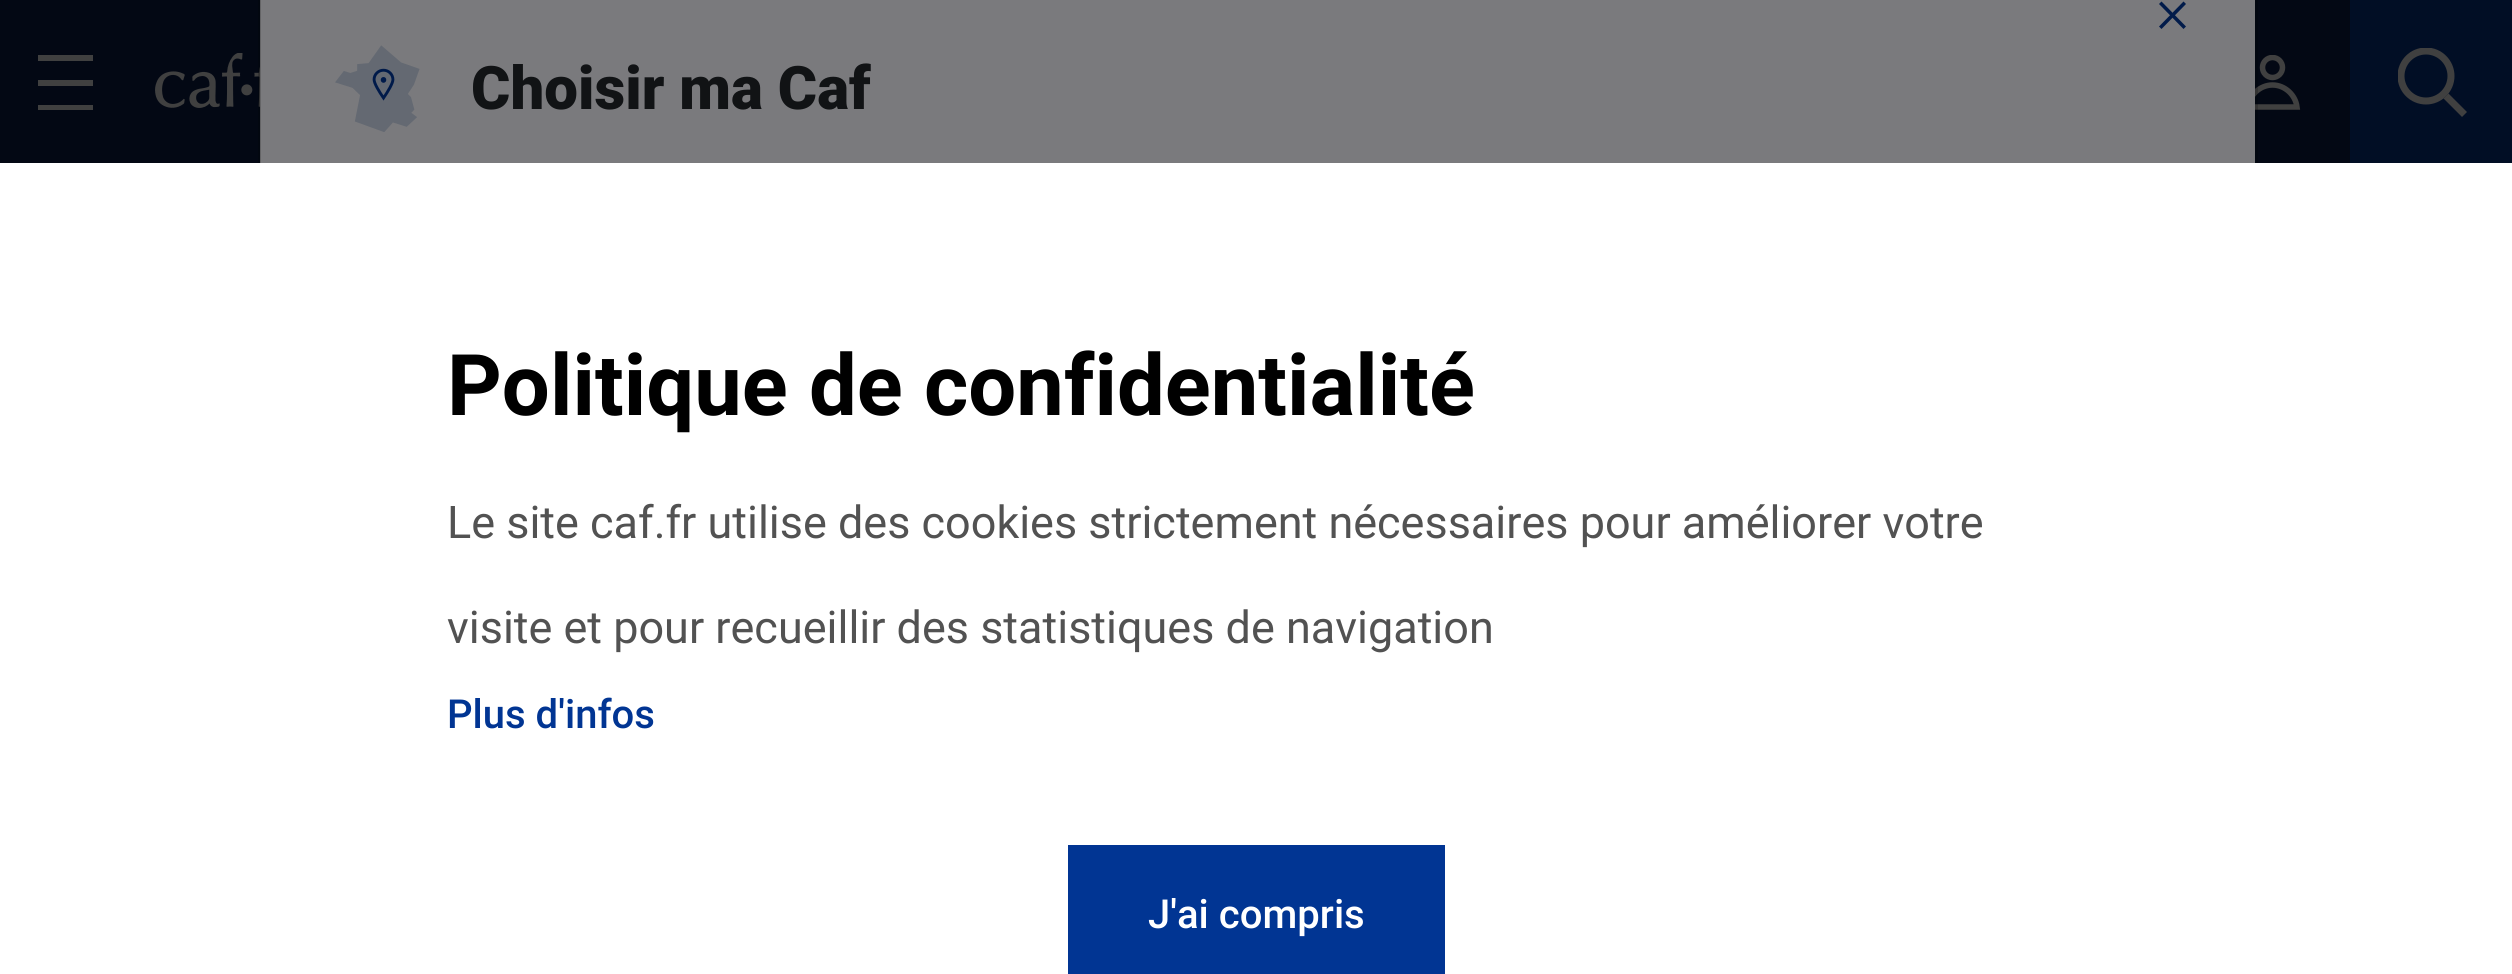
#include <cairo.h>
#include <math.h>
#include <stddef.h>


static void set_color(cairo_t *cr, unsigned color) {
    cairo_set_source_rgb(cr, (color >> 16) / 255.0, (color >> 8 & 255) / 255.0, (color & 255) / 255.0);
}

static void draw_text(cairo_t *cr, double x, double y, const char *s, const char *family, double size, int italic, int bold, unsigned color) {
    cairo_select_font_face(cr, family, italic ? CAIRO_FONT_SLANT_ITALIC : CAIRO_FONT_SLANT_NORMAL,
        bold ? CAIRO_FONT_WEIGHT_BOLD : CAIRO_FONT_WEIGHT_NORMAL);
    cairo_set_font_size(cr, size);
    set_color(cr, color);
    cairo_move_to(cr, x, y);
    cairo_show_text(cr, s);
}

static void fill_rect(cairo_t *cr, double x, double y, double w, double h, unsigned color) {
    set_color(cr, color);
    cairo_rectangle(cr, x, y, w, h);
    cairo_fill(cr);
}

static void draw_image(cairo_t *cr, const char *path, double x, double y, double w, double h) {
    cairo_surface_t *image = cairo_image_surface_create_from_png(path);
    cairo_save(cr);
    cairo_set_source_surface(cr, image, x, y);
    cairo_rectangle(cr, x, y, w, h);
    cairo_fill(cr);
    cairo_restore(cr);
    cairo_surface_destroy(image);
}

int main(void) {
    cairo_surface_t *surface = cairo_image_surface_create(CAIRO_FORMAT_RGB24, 2512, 974);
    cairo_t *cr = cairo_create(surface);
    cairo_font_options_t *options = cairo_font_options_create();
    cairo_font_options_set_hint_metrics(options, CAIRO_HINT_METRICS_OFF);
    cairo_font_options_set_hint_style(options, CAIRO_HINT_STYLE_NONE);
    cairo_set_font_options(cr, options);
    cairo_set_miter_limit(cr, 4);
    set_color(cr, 0x030814);
    cairo_paint(cr);
    fill_rect(cr, 38, 55, 55, 6, 0x404040);
    fill_rect(cr, 38, 80, 55, 6, 0x404040);
    fill_rect(cr, 38, 105, 55, 5, 0x404040);
    draw_image(cr, "assets/img1.png", 155, 53, 105, 55);
    cairo_new_path(cr);
    cairo_move_to(cr, 2272.5, 85);
    cairo_curve_to(cr, 2285, 85, 2295.5, 95, 2297, 107);
    cairo_line_to(cr, 2248, 107);
    cairo_curve_to(cr, 2249.5, 95, 2260, 85, 2272.5, 85);
    cairo_close_path(cr);
    cairo_set_line_width(cr, 5.5);
    cairo_stroke(cr);
    cairo_save(cr);
    cairo_rectangle(cr, 2245, 55, 55, 55);
    cairo_clip(cr);
    cairo_arc(cr, 2272.5, 67.5, 10, 0, 2 * M_PI);
    cairo_stroke(cr);
    cairo_restore(cr);
    fill_rect(cr, 2350, 0, 162, 163, 0x010E25);
    cairo_save(cr);
    cairo_rectangle(cr, 2398, 48, 70, 70);
    cairo_clip(cr);
    cairo_arc(cr, 2426, 76, 25, 0, 2 * M_PI);
    set_color(cr, 0x404040);
    cairo_set_line_width(cr, 7);
    cairo_stroke(cr);
    cairo_restore(cr);
    cairo_new_path(cr);
    cairo_move_to(cr, 2446, 96);
    cairo_line_to(cr, 2464.5, 114.5);
    set_color(cr, 0x404040);
    cairo_set_line_width(cr, 7);
    cairo_stroke(cr);
    fill_rect(cr, 260, 0, 1995, 163, 0x7A7A7D);
    cairo_rectangle(cr, 259.5, -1.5, 1997, 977);
    cairo_set_source_rgba(cr, 0, 0, 0, 0.18);
    cairo_set_line_width(cr, 3);
    cairo_stroke(cr);
    set_color(cr, 0x011B4A);
    cairo_set_fill_rule(cr, CAIRO_FILL_RULE_EVEN_ODD);
    cairo_new_path(cr);
    cairo_move_to(cr, 2161.5, 1.5);
    cairo_line_to(cr, 2186, 26.5);
    cairo_line_to(cr, 2183.5, 29);
    cairo_line_to(cr, 2159, 4);
    cairo_close_path(cr);
    cairo_fill(cr);
    cairo_new_path(cr);
    cairo_move_to(cr, 2159, 26.5);
    cairo_line_to(cr, 2183.5, 1.5);
    cairo_line_to(cr, 2186, 4);
    cairo_line_to(cr, 2161.5, 29);
    cairo_close_path(cr);
    cairo_fill(cr);
    draw_image(cr, "assets/img2.png", 335, 45, 85, 87);
    draw_text(cr, 471, 109, "Choisir ma Caf", "Roboto Black", 60, 0, 0, 0x111315);
    fill_rect(cr, 0, 163, 2512, 811, 0xFFFFFF);
    draw_text(cr, 447, 415, "Politique de confidentialité", "Roboto", 85, 0, 1, 0x000000);
    draw_text(cr, 447, 538, "Le site caf.fr utilise des cookies strictement nécessaires pour améliorer votre", "Roboto", 45, 0, 0, 0x525252);
    draw_text(cr, 447, 643, "visite et pour recueillir des statistiques de navigation", "Roboto", 45, 0, 0, 0x525252);
    draw_text(cr, 447, 728, "Plus d'infos", "Roboto Medium", 40, 0, 0, 0x013593);
    fill_rect(cr, 1068, 845, 377, 129, 0x013593);
    draw_text(cr, 1148, 928, "J'ai compris", "Roboto Medium", 40, 0, 0, 0xFFFFFF);
    cairo_surface_write_to_png(surface, "output.png");
    cairo_font_options_destroy(options);
    cairo_destroy(cr);
    cairo_surface_destroy(surface);
    return 0;
}
